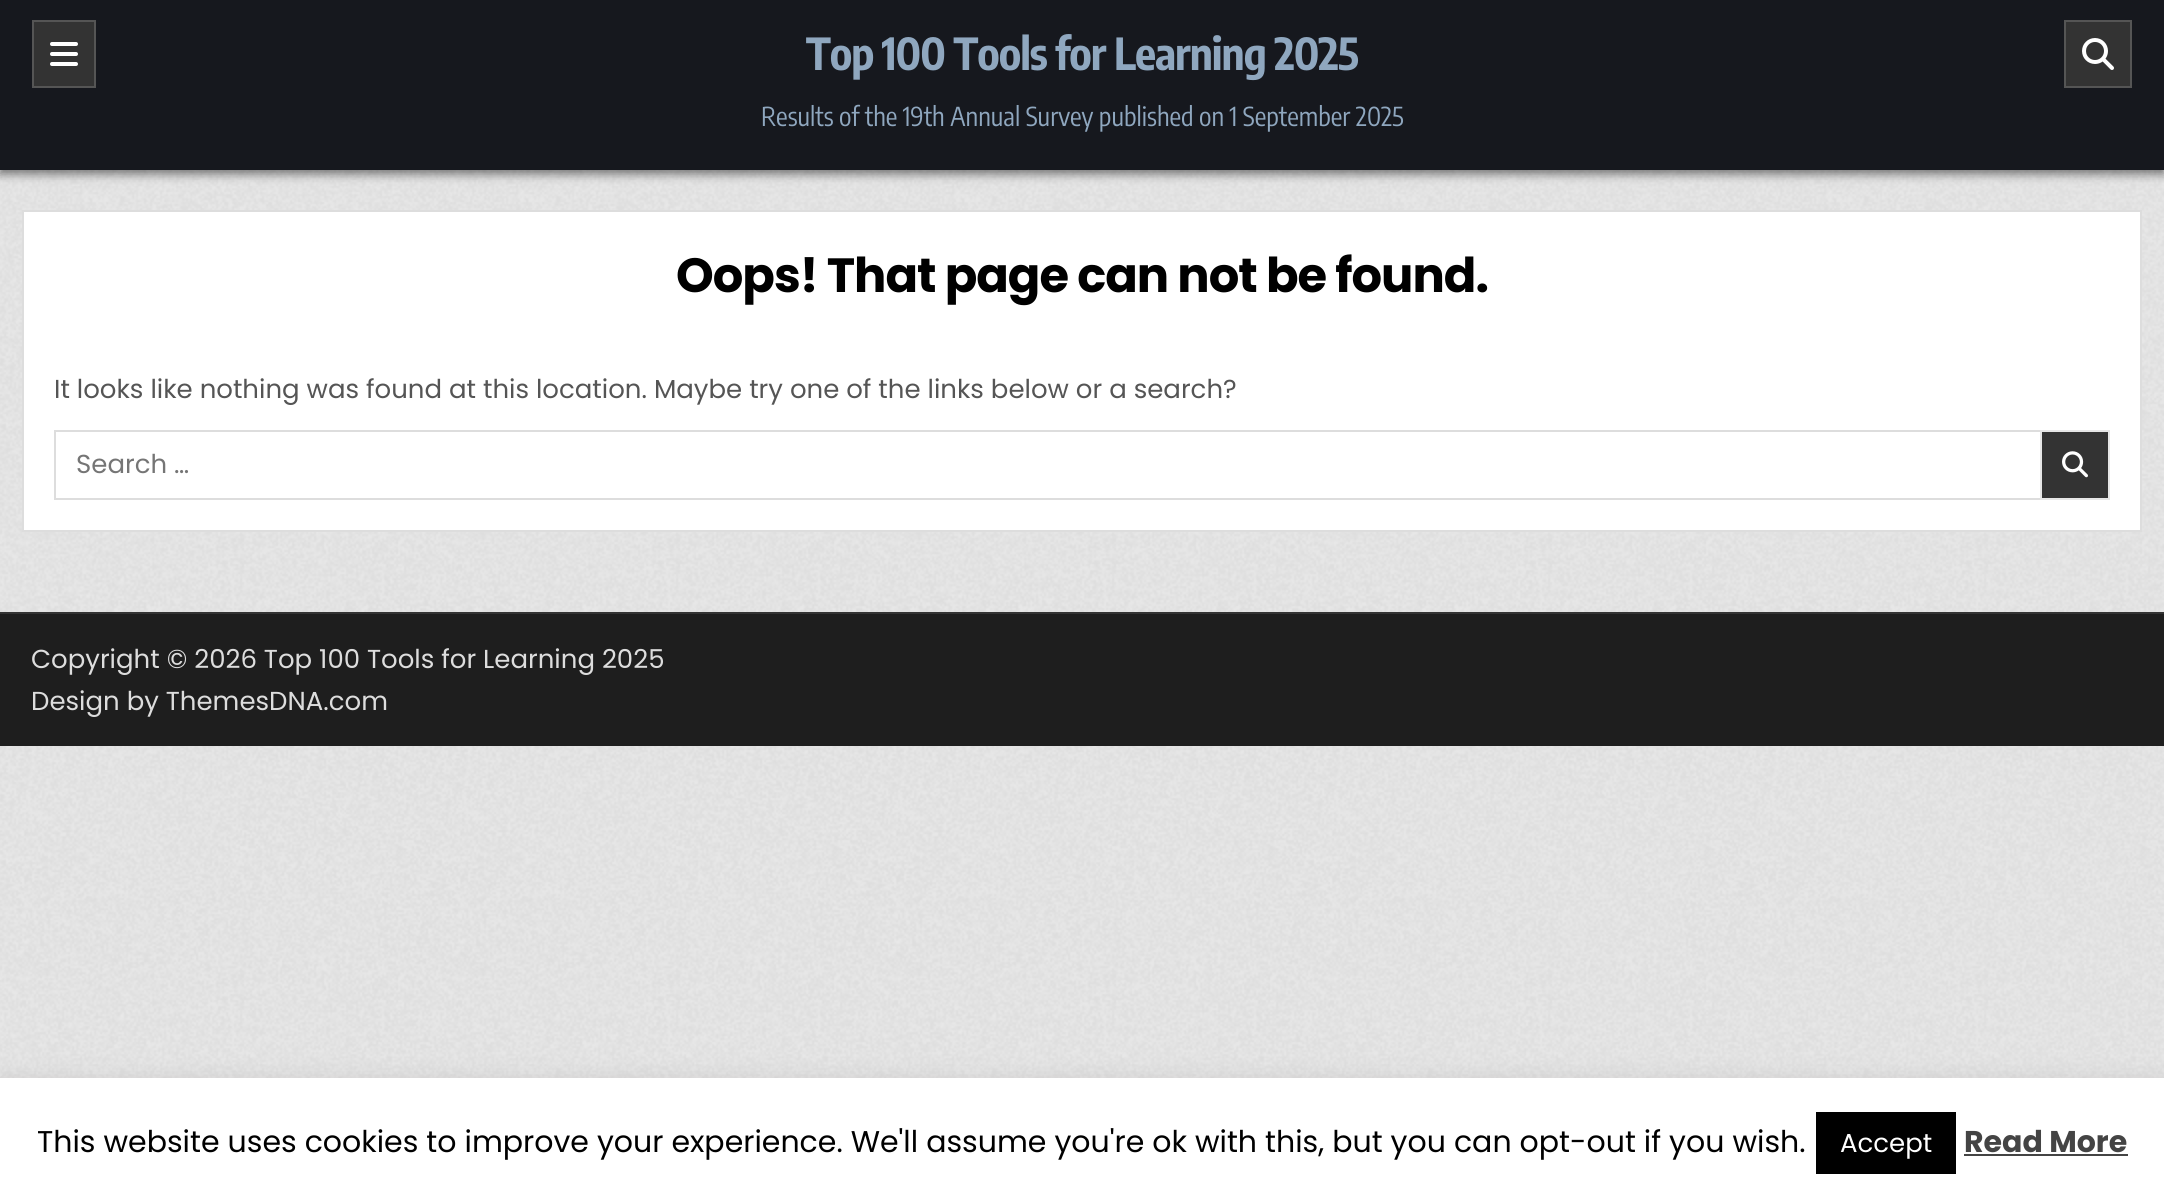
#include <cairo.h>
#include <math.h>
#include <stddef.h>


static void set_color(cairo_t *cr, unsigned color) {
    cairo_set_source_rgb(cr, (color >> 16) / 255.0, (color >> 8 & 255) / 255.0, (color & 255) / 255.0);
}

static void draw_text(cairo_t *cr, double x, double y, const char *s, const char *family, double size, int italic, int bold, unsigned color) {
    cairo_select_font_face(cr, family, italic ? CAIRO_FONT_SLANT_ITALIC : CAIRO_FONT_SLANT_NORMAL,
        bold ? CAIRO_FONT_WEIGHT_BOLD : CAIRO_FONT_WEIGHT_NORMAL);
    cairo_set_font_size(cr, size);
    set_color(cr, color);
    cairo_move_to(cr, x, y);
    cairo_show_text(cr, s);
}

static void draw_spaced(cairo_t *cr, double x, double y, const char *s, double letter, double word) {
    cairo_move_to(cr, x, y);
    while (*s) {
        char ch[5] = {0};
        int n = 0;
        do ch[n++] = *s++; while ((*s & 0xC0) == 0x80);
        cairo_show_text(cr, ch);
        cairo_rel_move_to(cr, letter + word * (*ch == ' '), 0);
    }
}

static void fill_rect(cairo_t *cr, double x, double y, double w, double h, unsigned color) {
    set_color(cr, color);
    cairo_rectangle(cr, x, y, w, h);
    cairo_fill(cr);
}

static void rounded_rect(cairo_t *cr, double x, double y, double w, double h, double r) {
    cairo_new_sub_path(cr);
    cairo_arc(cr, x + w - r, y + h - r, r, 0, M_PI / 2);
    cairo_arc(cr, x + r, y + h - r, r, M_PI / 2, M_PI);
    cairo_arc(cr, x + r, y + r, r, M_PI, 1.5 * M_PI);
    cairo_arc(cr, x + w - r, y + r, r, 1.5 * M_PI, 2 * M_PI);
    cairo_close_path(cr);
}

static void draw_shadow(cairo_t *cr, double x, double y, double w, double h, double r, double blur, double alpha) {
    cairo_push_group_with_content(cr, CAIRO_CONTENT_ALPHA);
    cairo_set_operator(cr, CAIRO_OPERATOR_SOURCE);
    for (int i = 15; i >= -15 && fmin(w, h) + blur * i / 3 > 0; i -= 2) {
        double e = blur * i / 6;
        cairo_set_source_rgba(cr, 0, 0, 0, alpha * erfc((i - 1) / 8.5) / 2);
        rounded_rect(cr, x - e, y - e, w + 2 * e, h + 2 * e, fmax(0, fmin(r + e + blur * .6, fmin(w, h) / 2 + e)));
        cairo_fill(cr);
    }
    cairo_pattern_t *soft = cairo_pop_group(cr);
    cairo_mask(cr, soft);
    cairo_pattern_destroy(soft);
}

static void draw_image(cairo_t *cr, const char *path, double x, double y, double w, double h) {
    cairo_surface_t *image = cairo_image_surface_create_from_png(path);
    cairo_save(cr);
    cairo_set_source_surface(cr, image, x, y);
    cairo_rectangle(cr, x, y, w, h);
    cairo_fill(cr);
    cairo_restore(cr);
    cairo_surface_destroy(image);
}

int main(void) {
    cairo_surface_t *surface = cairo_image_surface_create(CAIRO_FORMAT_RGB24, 2164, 1198);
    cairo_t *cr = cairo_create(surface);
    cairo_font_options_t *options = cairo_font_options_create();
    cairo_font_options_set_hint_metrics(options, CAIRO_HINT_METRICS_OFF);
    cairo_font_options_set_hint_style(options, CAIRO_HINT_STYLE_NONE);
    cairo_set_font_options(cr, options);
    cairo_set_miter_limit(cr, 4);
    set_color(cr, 0xFFFFFF);
    cairo_paint(cr);
    draw_image(cr, "assets/img1.png", 0, 170, 2164, 908);
    set_color(cr, 0x000000);
    draw_shadow(cr, 0, 4, 2164, 170, 0, 5, 0.5);
    fill_rect(cr, 0, 0, 2164, 170, 0x16181E);
    set_color(cr, 0x333333);
    cairo_rectangle(cr, 33, 21, 62, 66);
    cairo_fill_preserve(cr);
    set_color(cr, 0x555555);
    cairo_stroke(cr);
    draw_image(cr, "assets/img2.png", 50, 42, 28, 24);
    cairo_select_font_face(cr, "Encode Sans Condensed", CAIRO_FONT_SLANT_NORMAL, CAIRO_FONT_WEIGHT_BOLD);
    cairo_set_font_size(cr, 44);
    set_color(cr, 0x8FA7BF);
    draw_spaced(cr, 806, 70, "Top 100 Tools for Learning 2025", -1, 0);
    draw_text(cr, 761, 126, "Results of the 19th Annual Survey published on 1 September 2025", "Encode Sans Condensed", 26, 0, 0, 0x8FA7BF);
    set_color(cr, 0x333333);
    cairo_rectangle(cr, 2065, 21, 66, 66);
    cairo_fill_preserve(cr);
    set_color(cr, 0x555555);
    cairo_stroke(cr);
    draw_image(cr, "assets/img3.png", 2082, 38, 32, 32);
    set_color(cr, 0xFFFFFF);
    cairo_rectangle(cr, 23, 211, 2118, 320);
    cairo_fill_preserve(cr);
    set_color(cr, 0xDDDDDD);
    cairo_stroke(cr);
    cairo_select_font_face(cr, "Poppins", CAIRO_FONT_SLANT_NORMAL, CAIRO_FONT_WEIGHT_BOLD);
    cairo_set_font_size(cr, 48);
    set_color(cr, 0x000000);
    draw_spaced(cr, 676, 292, "Oops! That page can not be found.", -1, 0);
    draw_text(cr, 54, 398, "It looks like nothing was found at this location. Maybe try one of the links below or a search?", "Poppins", 26, 0, 0, 0x555555);
    cairo_rectangle(cr, 55, 431, 2054, 68);
    set_color(cr, 0xDDDDDD);
    cairo_stroke(cr);
    draw_text(cr, 76, 473, "Search …", "Poppins", 26, 0, 0, 0x757575);
    set_color(cr, 0x333333);
    cairo_rectangle(cr, 2041, 431, 68, 68);
    cairo_fill_preserve(cr);
    set_color(cr, 0xE6E6E6);
    cairo_stroke(cr);
    draw_image(cr, "assets/img4.png", 2062, 451, 26, 27);
    fill_rect(cr, 0, 614, 2164, 132, 0x1E1E1E);
    fill_rect(cr, 0, 612, 2164, 2, 0x333333);
    draw_text(cr, 31, 668, "Copyright © 2026 Top 100 Tools for Learning 2025", "Poppins", 26, 0, 0, 0xDDDDDD);
    draw_text(cr, 31, 710, "Design by ThemesDNA.com", "Poppins", 26, 0, 0, 0xDDDDDD);
    set_color(cr, 0xACABAB);
    draw_shadow(cr, 0, 1076, 2164, 120, 0, 10, 0.3);
    fill_rect(cr, 0, 1078, 2164, 120, 0xFFFFFF);
    draw_text(cr, 37, 1152, "This website uses cookies to improve your experience. We'll assume you're ok with this, but you can opt-out if you wish.", "Poppins", 30, 0, 0, 0x000000);
    fill_rect(cr, 1816, 1112, 140, 62, 0x000000);
    draw_text(cr, 1840, 1152, "Accept", "Poppins", 26, 0, 0, 0xFFFFFF);
    draw_text(cr, 1964, 1152, "Read More", "Poppins", 30, 0, 1, 0x444444);
    fill_rect(cr, 1964, 1154, 164, 2, 0x444444);
    cairo_surface_write_to_png(surface, "output.png");
    cairo_font_options_destroy(options);
    cairo_destroy(cr);
    cairo_surface_destroy(surface);
    return 0;
}
